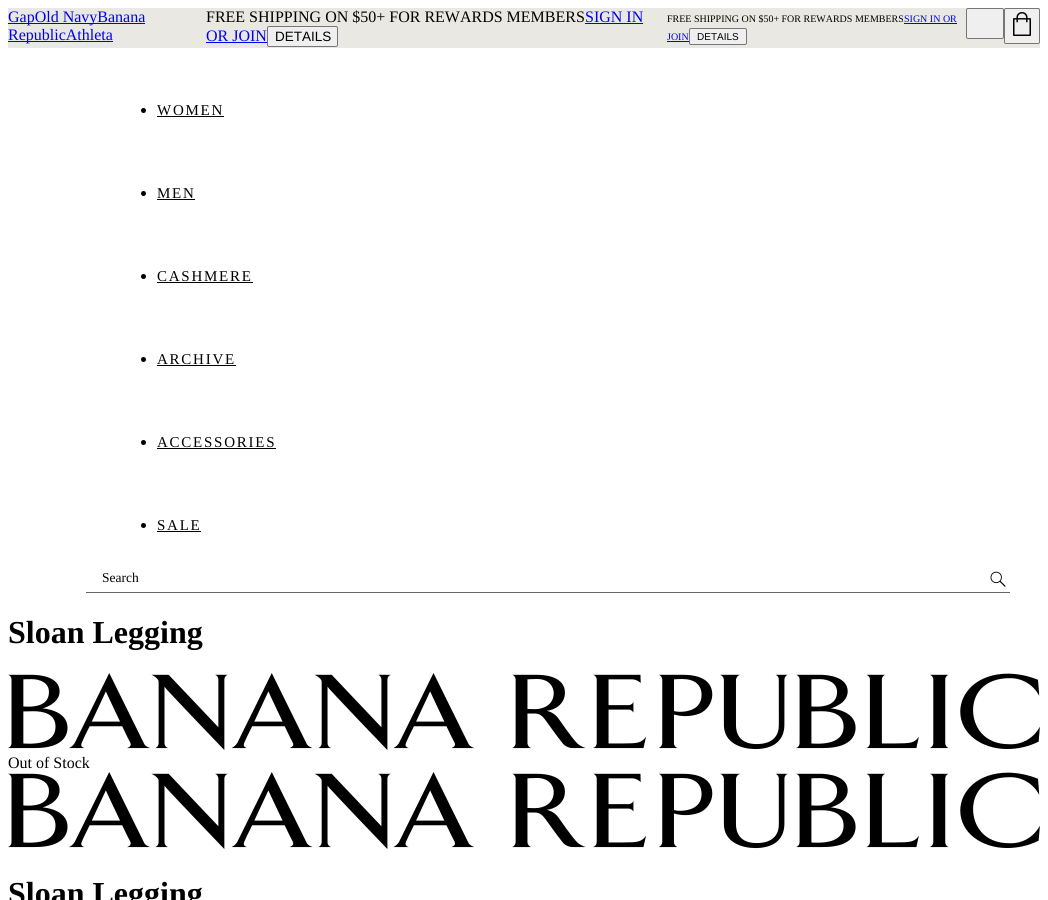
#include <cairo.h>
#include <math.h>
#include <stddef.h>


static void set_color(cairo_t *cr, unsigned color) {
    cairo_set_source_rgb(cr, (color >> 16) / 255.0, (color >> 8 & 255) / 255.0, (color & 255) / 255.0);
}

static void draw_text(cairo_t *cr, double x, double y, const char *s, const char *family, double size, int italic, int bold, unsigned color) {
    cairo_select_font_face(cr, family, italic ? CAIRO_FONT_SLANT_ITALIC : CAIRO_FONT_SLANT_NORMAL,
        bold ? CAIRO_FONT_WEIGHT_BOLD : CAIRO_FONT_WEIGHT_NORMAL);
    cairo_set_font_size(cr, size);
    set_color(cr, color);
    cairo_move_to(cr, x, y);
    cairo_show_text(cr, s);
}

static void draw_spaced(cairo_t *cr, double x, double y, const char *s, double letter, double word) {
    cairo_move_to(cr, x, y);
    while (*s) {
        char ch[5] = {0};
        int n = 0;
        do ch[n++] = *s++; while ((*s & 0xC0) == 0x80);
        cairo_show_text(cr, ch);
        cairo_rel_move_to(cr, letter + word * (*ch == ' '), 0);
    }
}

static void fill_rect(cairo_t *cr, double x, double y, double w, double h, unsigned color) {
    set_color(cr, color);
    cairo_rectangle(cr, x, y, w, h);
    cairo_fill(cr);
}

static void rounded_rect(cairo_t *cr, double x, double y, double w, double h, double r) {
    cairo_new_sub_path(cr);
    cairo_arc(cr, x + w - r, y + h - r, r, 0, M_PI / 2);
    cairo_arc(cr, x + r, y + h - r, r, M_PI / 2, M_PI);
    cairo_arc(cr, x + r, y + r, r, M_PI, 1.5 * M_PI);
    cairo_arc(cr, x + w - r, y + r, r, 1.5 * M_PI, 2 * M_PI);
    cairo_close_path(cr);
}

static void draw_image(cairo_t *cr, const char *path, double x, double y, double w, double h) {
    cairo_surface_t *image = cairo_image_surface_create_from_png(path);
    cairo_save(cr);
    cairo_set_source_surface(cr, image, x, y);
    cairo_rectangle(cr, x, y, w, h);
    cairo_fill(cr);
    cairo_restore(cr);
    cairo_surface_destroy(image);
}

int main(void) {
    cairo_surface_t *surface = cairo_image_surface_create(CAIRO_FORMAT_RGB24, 1048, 900);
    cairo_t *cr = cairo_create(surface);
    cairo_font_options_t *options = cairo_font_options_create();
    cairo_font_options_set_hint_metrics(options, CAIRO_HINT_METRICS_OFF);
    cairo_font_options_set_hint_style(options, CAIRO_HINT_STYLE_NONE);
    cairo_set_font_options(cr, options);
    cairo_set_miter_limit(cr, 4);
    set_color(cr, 0xFFFFFF);
    cairo_paint(cr);
    fill_rect(cr, 8, 8, 1032, 40, 0xE9E8E3);
    fill_rect(cr, 8, 23, 89, 1, 0x0000EE);
    draw_text(cr, 8, 22, "GapOld NavyBanana", "Liberation Serif", 16, 0, 0, 0x0000EE);
    fill_rect(cr, 8, 41, 105, 1, 0x0000EE);
    draw_text(cr, 8, 40, "RepublicAthleta", "Liberation Serif", 16, 0, 0, 0x0000EE);
    fill_rect(cr, 97, 23, 48, 1, 0x0000EE);
    draw_text(cr, 206, 22, "FREE SHIPPING ON $50+ FOR REWARDS MEMBERS", "Liberation Serif", 16, 0, 0, 0x000000);
    draw_text(cr, 585, 22, "SIGN IN", "Liberation Serif", 16, 0, 0, 0x0000EE);
    fill_rect(cr, 585, 23, 58, 1, 0x0000EE);
    draw_text(cr, 206, 41, "OR JOIN", "Liberation Serif", 16, 0, 0, 0x0000EE);
    fill_rect(cr, 206, 42, 61, 1, 0x0000EE);
    set_color(cr, 0xEFEFEF);
    rounded_rect(cr, 267.5, 26.5, 70, 20, 1.5);
    cairo_fill_preserve(cr);
    set_color(cr, 0x767676);
    cairo_set_line_width(cr, 1);
    cairo_stroke(cr);
    draw_text(cr, 275, 41, "DETAILS", "Liberation Sans", 13.5, 0, 0, 0x000000);
    draw_text(cr, 667, 22, "FREE SHIPPING ON $50+ FOR REWARDS MEMBERS", "Liberation Serif", 10, 0, 0, 0x000000);
    draw_text(cr, 904, 22, "SIGN IN OR", "Liberation Serif", 10, 0, 0, 0x0000EE);
    fill_rect(cr, 904, 23, 53, 1, 0x0000EE);
    draw_text(cr, 667, 40, "JOIN", "Liberation Serif", 10, 0, 0, 0x0000EE);
    fill_rect(cr, 667, 41, 22, 1, 0x0000EE);
    set_color(cr, 0xEFEFEF);
    rounded_rect(cr, 689.5, 28.5, 57, 16, 1.5);
    cairo_fill_preserve(cr);
    set_color(cr, 0x767676);
    cairo_stroke(cr);
    draw_text(cr, 697, 40, "DETAILS", "Liberation Sans", 10, 0, 0, 0x000000);
    set_color(cr, 0xEFEFEF);
    rounded_rect(cr, 966.5, 8.5, 37, 30, 1.5);
    cairo_fill_preserve(cr);
    set_color(cr, 0x767676);
    cairo_stroke(cr);
    set_color(cr, 0xEFEFEF);
    rounded_rect(cr, 1004.5, 8.5, 35, 35, 1.5);
    cairo_fill_preserve(cr);
    set_color(cr, 0x767676);
    cairo_stroke(cr);
    draw_image(cr, "assets/img1.png", 1013, 12, 18, 24);
    set_color(cr, 0x000000);
    cairo_arc(cr, 143.5, 110.5, 2.5, 0, 2 * M_PI);
    cairo_fill(cr);
    cairo_select_font_face(cr, "Liberation Serif", CAIRO_FONT_SLANT_NORMAL, CAIRO_FONT_WEIGHT_NORMAL);
    cairo_set_font_size(cr, 15);
    draw_spaced(cr, 157, 115, "WOMEN", 1.75, 0);
    fill_rect(cr, 157, 116, 67, 1, 0x000000);
    cairo_new_path(cr);
    cairo_arc(cr, 143.5, 193.5, 2.5, 0, 2 * M_PI);
    cairo_fill(cr);
    draw_spaced(cr, 157, 198, "MEN", 1.75, 0);
    fill_rect(cr, 157, 199, 38, 1, 0x000000);
    cairo_new_path(cr);
    cairo_arc(cr, 143.5, 276.5, 2.5, 0, 2 * M_PI);
    cairo_fill(cr);
    draw_spaced(cr, 157, 281, "CASHMERE", 1.75, 0);
    fill_rect(cr, 157, 282, 96, 1, 0x000000);
    cairo_new_path(cr);
    cairo_arc(cr, 143.5, 359.5, 2.5, 0, 2 * M_PI);
    cairo_fill(cr);
    draw_spaced(cr, 157, 364, "ARCHIVE", 1.75, 0);
    fill_rect(cr, 157, 365, 79, 1, 0x000000);
    cairo_new_path(cr);
    cairo_arc(cr, 143.5, 442.5, 2.5, 0, 2 * M_PI);
    cairo_fill(cr);
    draw_spaced(cr, 157, 447, "ACCESSORIES", 1.75, 0);
    fill_rect(cr, 157, 448, 119, 1, 0x000000);
    cairo_new_path(cr);
    cairo_arc(cr, 143.5, 525.5, 2.5, 0, 2 * M_PI);
    cairo_fill(cr);
    draw_spaced(cr, 157, 530, "SALE", 1.75, 0);
    fill_rect(cr, 157, 531, 44, 1, 0x000000);
    fill_rect(cr, 86, 592, 924, 1, 0x666666);
    draw_text(cr, 102, 582, "Search", "Liberation Serif", 13.5, 0, 0, 0x000000);
    draw_image(cr, "assets/img2.png", 990, 571, 16, 16);
    draw_text(cr, 8, 643, "Sloan Legging", "Liberation Serif", 32, 0, 1, 0x000000);
    draw_image(cr, "assets/img3.png", 8, 673, 1032, 77);
    draw_text(cr, 8, 768, "Out of Stock", "Liberation Serif", 16, 0, 0, 0x000000);
    draw_image(cr, "assets/img3.png", 8, 772, 1032, 77);
    draw_text(cr, 8, 904, "Sloan Legging", "Liberation Serif", 32, 0, 1, 0x000000);
    cairo_surface_write_to_png(surface, "output.png");
    cairo_font_options_destroy(options);
    cairo_destroy(cr);
    cairo_surface_destroy(surface);
    return 0;
}
